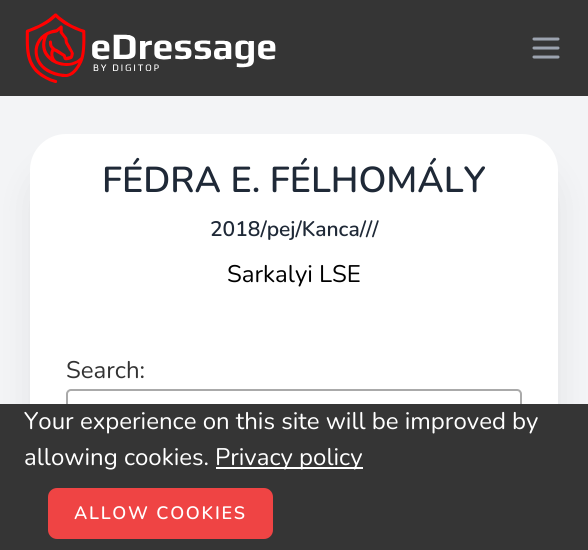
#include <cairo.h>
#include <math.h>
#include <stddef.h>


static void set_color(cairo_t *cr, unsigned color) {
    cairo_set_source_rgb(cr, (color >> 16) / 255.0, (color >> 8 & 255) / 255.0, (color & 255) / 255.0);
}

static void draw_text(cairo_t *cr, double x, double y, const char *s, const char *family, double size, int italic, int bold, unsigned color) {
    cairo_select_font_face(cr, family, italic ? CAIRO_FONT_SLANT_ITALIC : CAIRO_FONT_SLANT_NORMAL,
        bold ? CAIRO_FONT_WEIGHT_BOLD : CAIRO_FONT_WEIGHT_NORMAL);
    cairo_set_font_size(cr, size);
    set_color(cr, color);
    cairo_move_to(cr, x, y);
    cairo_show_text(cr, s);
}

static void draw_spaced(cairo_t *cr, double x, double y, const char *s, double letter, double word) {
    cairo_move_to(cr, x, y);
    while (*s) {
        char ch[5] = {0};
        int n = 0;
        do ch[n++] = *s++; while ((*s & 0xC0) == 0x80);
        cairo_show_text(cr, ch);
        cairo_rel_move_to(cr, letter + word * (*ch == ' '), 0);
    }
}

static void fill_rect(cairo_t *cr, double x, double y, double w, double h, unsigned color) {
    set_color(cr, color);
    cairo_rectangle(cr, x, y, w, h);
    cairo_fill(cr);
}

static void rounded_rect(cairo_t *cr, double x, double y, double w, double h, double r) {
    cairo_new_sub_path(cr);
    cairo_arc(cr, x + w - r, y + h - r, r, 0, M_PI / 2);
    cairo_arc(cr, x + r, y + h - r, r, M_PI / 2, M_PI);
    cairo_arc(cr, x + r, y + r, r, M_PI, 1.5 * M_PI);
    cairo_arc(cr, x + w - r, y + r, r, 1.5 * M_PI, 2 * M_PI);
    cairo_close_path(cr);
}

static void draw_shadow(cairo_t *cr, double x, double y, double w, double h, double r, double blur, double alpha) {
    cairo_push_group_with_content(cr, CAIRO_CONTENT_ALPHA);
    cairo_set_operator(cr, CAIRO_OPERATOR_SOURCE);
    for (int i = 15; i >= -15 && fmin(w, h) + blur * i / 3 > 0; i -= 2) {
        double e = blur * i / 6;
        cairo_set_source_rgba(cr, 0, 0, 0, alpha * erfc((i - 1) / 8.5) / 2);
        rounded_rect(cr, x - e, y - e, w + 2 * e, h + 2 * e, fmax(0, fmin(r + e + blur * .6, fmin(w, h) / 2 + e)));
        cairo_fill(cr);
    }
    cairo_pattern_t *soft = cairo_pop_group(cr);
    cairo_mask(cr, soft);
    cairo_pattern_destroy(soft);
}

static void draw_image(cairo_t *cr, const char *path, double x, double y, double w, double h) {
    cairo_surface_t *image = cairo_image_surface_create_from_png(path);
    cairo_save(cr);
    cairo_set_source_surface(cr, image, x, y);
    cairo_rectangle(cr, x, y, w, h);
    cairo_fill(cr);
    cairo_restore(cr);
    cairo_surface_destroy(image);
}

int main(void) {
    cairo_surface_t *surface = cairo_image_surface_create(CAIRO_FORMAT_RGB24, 588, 550);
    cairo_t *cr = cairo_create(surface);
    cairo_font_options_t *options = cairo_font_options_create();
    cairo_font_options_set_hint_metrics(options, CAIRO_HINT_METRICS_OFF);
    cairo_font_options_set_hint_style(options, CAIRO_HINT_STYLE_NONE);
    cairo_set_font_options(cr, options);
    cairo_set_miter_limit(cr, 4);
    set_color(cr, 0xF3F4F6);
    cairo_paint(cr);
    fill_rect(cr, 0, 0, 588, 96, 0x353535);
    draw_image(cr, "assets/img1.png", 25, 13, 251, 70);
    cairo_new_path(cr);
    cairo_move_to(cr, 534, 39);
    cairo_line_to(cr, 558, 39);
    cairo_move_to(cr, 534, 48);
    cairo_line_to(cr, 558, 48);
    cairo_move_to(cr, 534, 57);
    cairo_line_to(cr, 558, 57);
    set_color(cr, 0x9CA3AF);
    cairo_set_line_width(cr, 3);
    cairo_set_line_cap(cr, CAIRO_LINE_CAP_ROUND);
    cairo_set_line_join(cr, CAIRO_LINE_JOIN_ROUND);
    cairo_stroke(cr);
    set_color(cr, 0x000000);
    draw_shadow(cr, 38, 171, 513, 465, 29, 19, 0.1);
    set_color(cr, 0xFFFFFF);
    rounded_rect(cr, 30, 134, 528, 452, 36);
    cairo_fill(cr);
    draw_text(cr, 102, 192, "FÉDRA E. FÉLHOMÁLY", "Nunito SemiBold", 36, 0, 0, 0x1F2937);
    draw_text(cr, 210, 236, "2018/pej/Kanca///", "Nunito SemiBold", 21, 0, 0, 0x1F2937);
    draw_text(cr, 227, 282, "Sarkalyi LSE", "Nunito", 24, 0, 0, 0x000000);
    draw_text(cr, 66, 378, "Search:", "Nunito", 24, 0, 0, 0x333333);
    rounded_rect(cr, 67, 390, 454, 52, 4);
    set_color(cr, 0xAAAAAA);
    cairo_set_line_width(cr, 2);
    cairo_set_line_cap(cr, CAIRO_LINE_CAP_BUTT);
    cairo_set_line_join(cr, CAIRO_LINE_JOIN_MITER);
    cairo_stroke(cr);
    fill_rect(cr, 0, 404, 588, 146, 0x353535);
    draw_text(cr, 24, 429, "Your experience on this site will be improved by", "Nunito", 24, 0, 0, 0xFFFFFF);
    draw_text(cr, 24, 465, "allowing cookies.", "Nunito", 24, 0, 0, 0xFFFFFF);
    fill_rect(cr, 216, 467, 147, 2, 0xFFFFFF);
    draw_text(cr, 215, 465, "Privacy policy", "Nunito", 24, 0, 0, 0xFFFFFF);
    set_color(cr, 0xEF4444);
    rounded_rect(cr, 48, 488, 225, 51, 9);
    cairo_fill(cr);
    cairo_select_font_face(cr, "Nunito SemiBold", CAIRO_FONT_SLANT_NORMAL, CAIRO_FONT_WEIGHT_NORMAL);
    cairo_set_font_size(cr, 18);
    set_color(cr, 0xFFFFFF);
    draw_spaced(cr, 74, 519, "ALLOW COOKIES", 1.75, 0);
    cairo_surface_write_to_png(surface, "output.png");
    cairo_font_options_destroy(options);
    cairo_destroy(cr);
    cairo_surface_destroy(surface);
    return 0;
}
